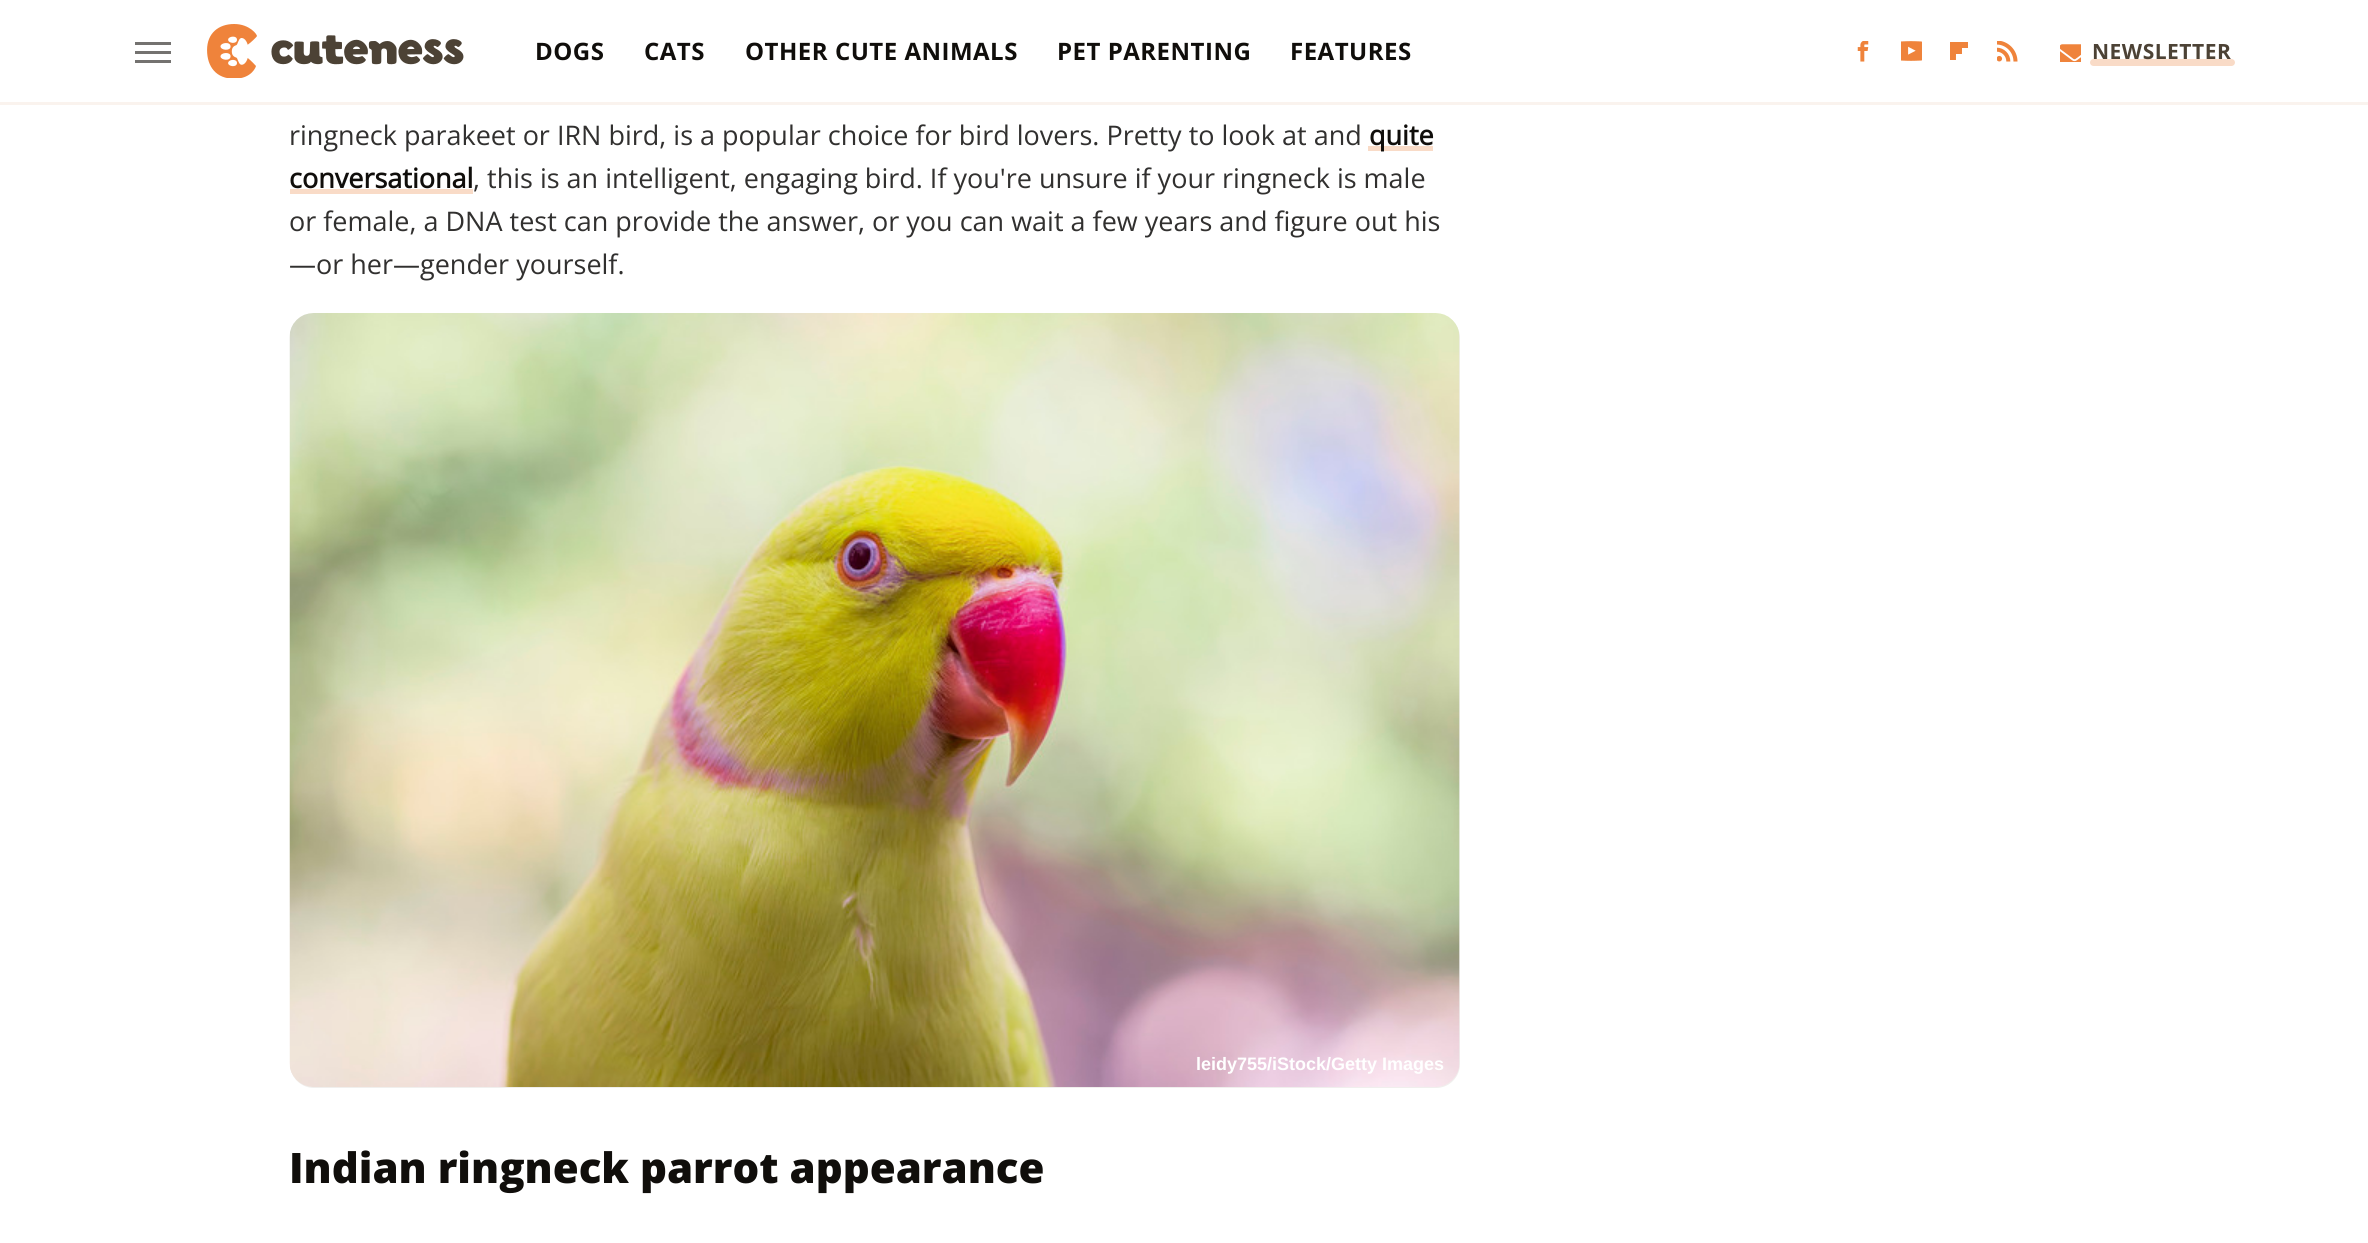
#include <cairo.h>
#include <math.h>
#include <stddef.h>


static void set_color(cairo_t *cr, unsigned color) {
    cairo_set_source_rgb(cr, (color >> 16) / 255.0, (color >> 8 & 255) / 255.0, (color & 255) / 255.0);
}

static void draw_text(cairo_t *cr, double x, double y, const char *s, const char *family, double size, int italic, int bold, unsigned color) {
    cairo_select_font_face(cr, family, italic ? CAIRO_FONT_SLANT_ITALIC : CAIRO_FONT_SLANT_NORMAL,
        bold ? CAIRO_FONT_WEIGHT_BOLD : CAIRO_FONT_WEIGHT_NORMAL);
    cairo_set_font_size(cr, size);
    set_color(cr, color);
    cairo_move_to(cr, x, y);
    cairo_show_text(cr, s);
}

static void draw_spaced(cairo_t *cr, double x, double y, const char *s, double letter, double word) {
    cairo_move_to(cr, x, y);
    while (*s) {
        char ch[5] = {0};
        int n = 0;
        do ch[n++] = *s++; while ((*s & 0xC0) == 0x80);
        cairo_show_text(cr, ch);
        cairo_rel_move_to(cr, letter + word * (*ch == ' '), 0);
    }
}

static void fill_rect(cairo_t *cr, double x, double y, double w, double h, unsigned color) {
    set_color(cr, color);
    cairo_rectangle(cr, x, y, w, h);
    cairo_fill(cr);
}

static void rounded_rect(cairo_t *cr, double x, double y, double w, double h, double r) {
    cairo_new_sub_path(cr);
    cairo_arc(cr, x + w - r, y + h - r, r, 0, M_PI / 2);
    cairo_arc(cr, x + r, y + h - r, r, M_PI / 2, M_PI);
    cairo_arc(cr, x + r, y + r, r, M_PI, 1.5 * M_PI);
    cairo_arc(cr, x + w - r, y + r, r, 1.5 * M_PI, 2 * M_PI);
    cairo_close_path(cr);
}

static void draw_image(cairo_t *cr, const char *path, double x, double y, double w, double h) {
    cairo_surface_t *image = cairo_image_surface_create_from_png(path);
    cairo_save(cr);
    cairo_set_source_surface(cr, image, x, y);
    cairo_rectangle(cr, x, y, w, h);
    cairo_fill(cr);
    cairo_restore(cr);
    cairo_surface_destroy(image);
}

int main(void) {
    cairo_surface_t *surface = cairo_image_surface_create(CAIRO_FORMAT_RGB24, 2368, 1243);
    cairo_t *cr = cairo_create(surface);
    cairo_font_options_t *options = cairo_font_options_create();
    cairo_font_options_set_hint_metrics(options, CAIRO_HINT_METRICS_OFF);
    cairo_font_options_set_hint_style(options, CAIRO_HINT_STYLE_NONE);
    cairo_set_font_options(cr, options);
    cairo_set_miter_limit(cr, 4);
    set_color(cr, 0xFFFFFF);
    cairo_paint(cr);
    fill_rect(cr, 0, 102, 2368, 3, 0xFAF3EE);
    fill_rect(cr, 135, 42, 36, 3, 0x747270);
    fill_rect(cr, 135, 51, 36, 3, 0x747270);
    fill_rect(cr, 135, 60, 36, 3, 0x747270);
    draw_image(cr, "assets/img1.png", 207, 24, 257, 54);
    cairo_select_font_face(cr, "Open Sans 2", CAIRO_FONT_SLANT_NORMAL, CAIRO_FONT_WEIGHT_BOLD);
    cairo_set_font_size(cr, 24);
    set_color(cr, 0x100E0B);
    draw_spaced(cr, 535, 60, "DOGS", 0.5, 0);
    draw_spaced(cr, 644, 60, "CATS", 0.5, 0);
    draw_spaced(cr, 745, 60, "OTHER CUTE ANIMALS", 0.5, 0);
    draw_spaced(cr, 1057, 60, "PET PARENTING", 0.5, 0);
    draw_spaced(cr, 1290, 60, "FEATURES", 0.5, 0);
    draw_image(cr, "assets/img2.png", 1857, 41, 12, 21);
    draw_image(cr, "assets/img3.png", 1901, 41, 21, 20);
    draw_image(cr, "assets/img4.png", 1950, 42, 18, 18);
    draw_image(cr, "assets/img5.png", 1997, 41, 21, 21);
    draw_image(cr, "assets/img6.png", 2060, 44, 21, 18);
    set_color(cr, 0xF9DBC7);
    rounded_rect(cr, 2090, 59, 145, 7, 3.5);
    cairo_fill(cr);
    cairo_set_font_size(cr, 21);
    set_color(cr, 0x4C4235);
    draw_spaced(cr, 2092, 59, "NEWSLETTER", 0.5, 0);
    draw_text(cr, 289, 145, "ringneck parakeet or IRN bird, is a popular choice for bird lovers. Pretty to look at and", "Open Sans", 27, 0, 0, 0x31302F);
    fill_rect(cr, 1368, 146, 65, 5, 0xF9DBC7);
    draw_text(cr, 1369, 145, "quite", "Open Sans", 27, 0, 1, 0x100E0B);
    draw_text(cr, 289, 188, "conversational", "Open Sans", 27, 0, 1, 0x100E0B);
    fill_rect(cr, 290, 189, 183, 5, 0xF9DBC7);
    draw_text(cr, 473, 188, ", this is an intelligent, engaging bird. If you're unsure if your ringneck is male", "Open Sans", 27, 0, 0, 0x31302F);
    draw_text(cr, 289, 231, "or female, a DNA test can provide the answer, or you can wait a few years and figure out his", "Open Sans", 27, 0, 0, 0x31302F);
    draw_text(cr, 289, 274, "—or her—gender yourself.", "Open Sans", 27, 0, 0, 0x31302F);
    set_color(cr, 0xF0EFED);
    rounded_rect(cr, 290, 314, 1170, 774, 24);
    cairo_fill(cr);
    draw_image(cr, "assets/img7.png", 289, 313, 1171, 774);
    draw_text(cr, 1196, 1070, "leidy755/iStock/Getty Images", "Liberation Sans", 18, 0, 1, 0xFFFFFF);
    draw_text(cr, 289, 1183, "Indian ringneck parrot appearance", "Open Sans ExtraBold", 42, 0, 0, 0x100E0B);
    cairo_surface_write_to_png(surface, "output.png");
    cairo_font_options_destroy(options);
    cairo_destroy(cr);
    cairo_surface_destroy(surface);
    return 0;
}
